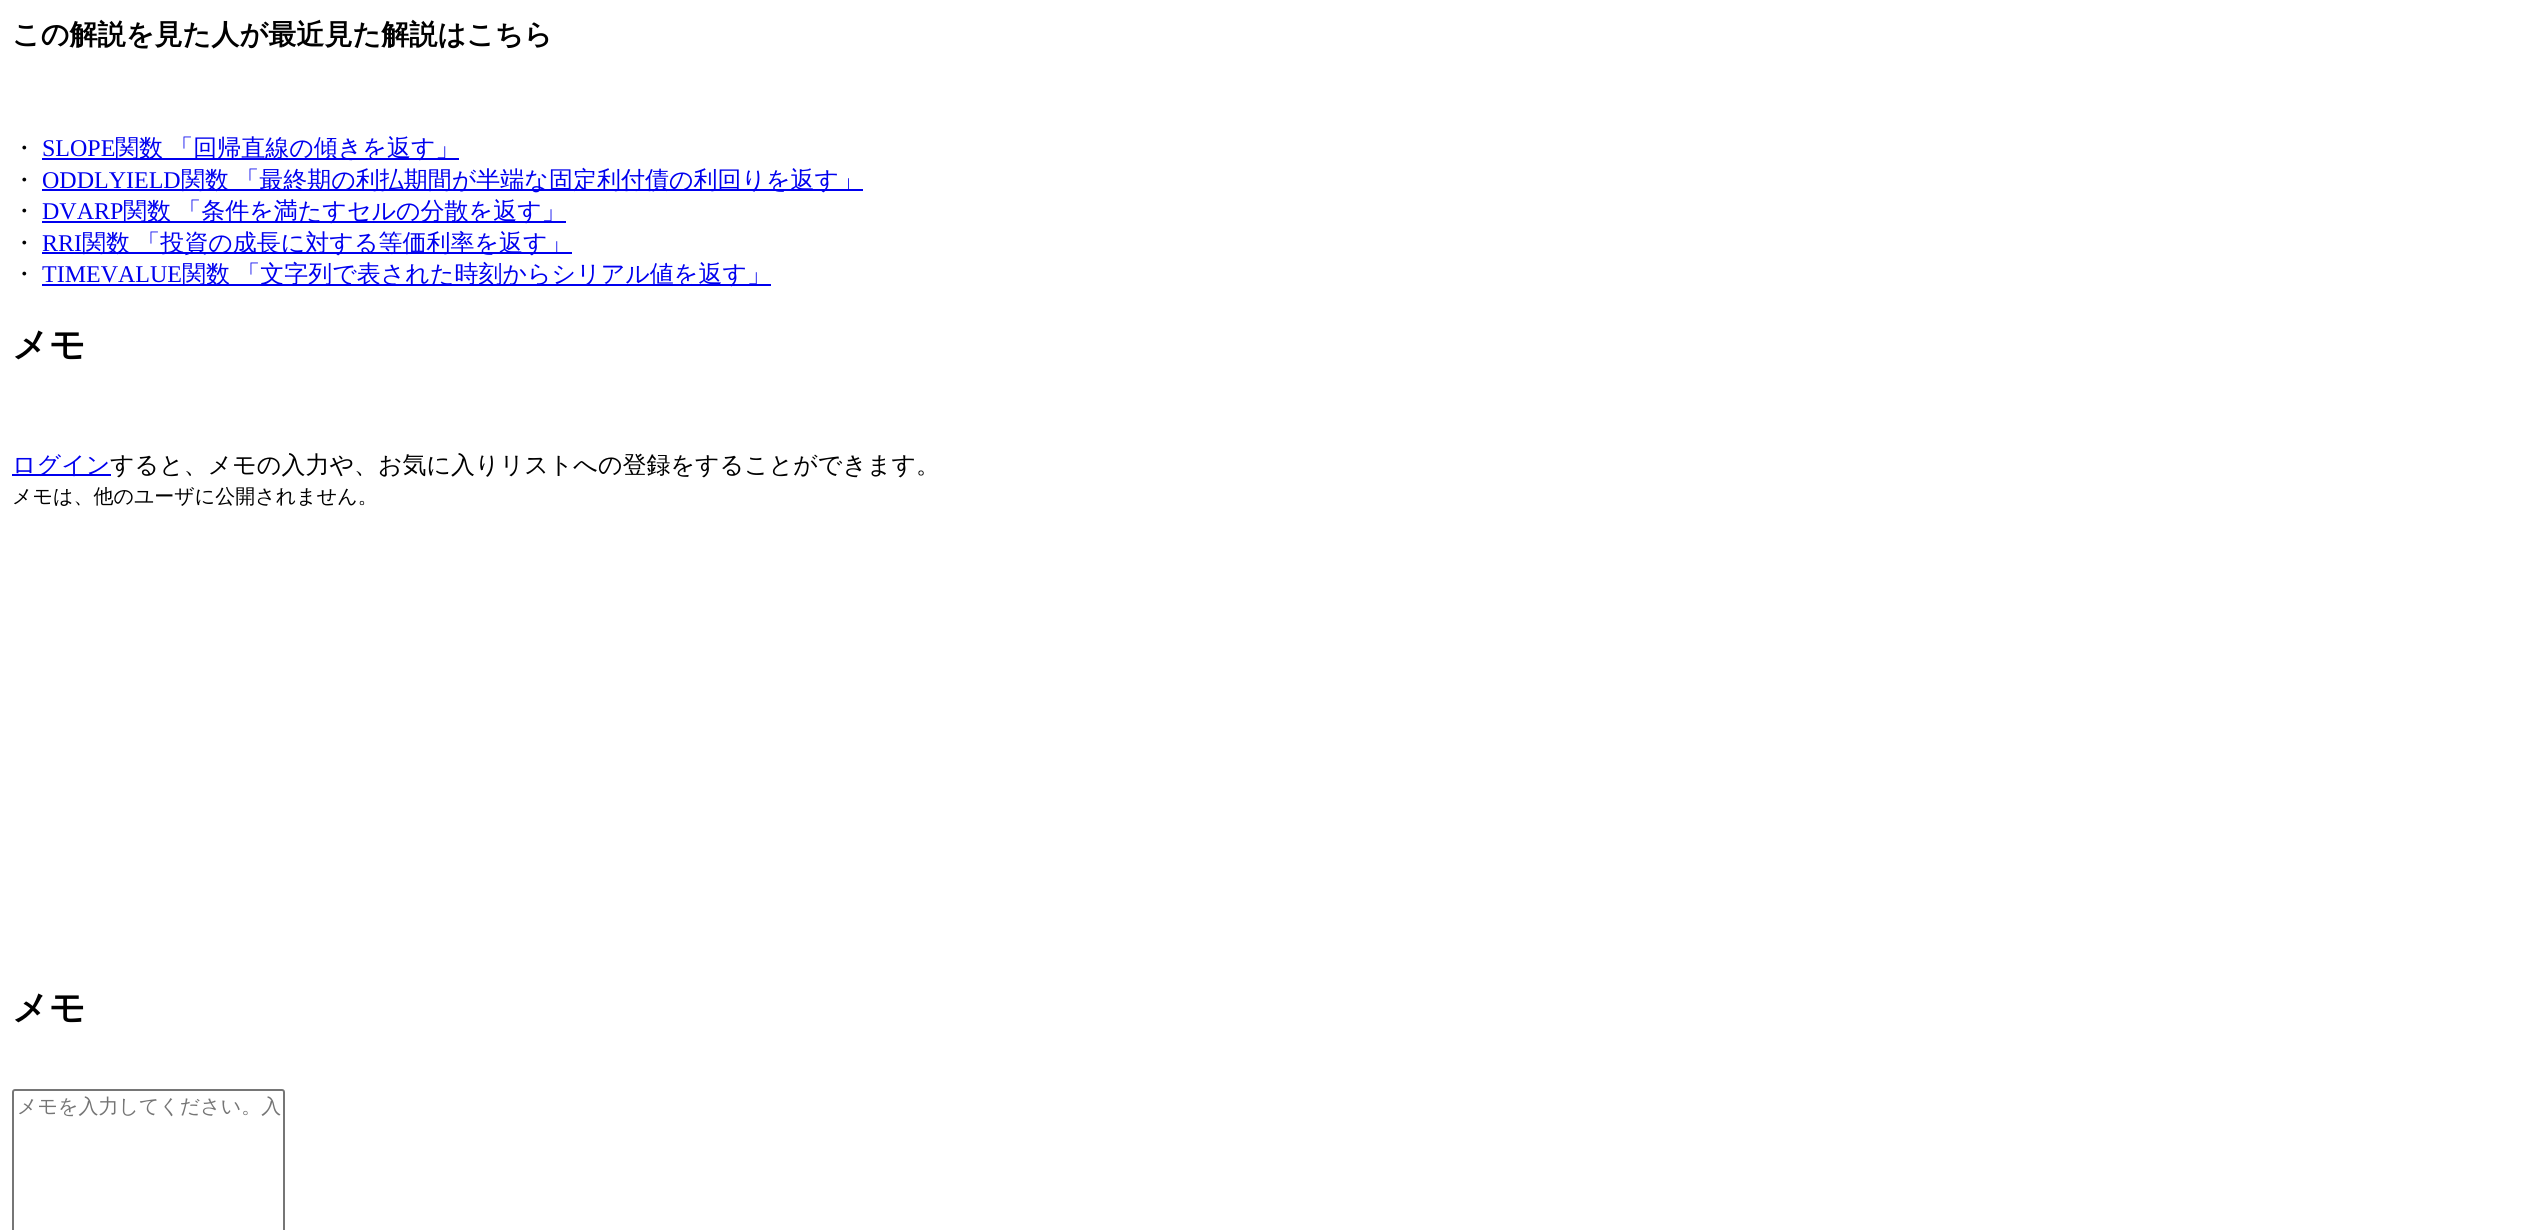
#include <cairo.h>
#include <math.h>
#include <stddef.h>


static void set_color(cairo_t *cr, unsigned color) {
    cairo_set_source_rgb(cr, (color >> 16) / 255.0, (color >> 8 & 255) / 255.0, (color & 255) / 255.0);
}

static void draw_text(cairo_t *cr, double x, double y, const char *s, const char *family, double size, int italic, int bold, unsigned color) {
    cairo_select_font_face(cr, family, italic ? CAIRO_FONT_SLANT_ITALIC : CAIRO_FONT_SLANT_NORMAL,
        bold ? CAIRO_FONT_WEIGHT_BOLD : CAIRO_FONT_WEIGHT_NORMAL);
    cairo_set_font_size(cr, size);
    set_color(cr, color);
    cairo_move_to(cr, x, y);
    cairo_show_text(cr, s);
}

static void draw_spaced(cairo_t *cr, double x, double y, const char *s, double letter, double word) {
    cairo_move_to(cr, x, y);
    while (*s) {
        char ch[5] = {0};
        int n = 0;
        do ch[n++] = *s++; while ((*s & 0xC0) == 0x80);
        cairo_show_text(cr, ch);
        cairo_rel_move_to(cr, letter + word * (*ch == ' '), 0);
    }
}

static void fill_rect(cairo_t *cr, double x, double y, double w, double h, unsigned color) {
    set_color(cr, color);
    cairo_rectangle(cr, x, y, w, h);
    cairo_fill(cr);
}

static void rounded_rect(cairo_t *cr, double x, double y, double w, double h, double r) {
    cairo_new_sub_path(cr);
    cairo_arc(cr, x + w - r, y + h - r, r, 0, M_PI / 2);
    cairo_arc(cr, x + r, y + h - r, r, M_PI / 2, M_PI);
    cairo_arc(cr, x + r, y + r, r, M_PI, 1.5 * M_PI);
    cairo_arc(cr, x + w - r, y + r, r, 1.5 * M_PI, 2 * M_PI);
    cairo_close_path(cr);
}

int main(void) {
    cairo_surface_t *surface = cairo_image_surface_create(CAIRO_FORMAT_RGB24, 2532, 1230);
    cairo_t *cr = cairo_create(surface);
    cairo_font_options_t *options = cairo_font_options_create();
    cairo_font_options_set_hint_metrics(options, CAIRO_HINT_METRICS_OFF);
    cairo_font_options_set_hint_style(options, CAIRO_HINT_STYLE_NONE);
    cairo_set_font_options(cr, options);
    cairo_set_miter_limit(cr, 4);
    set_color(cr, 0xFFFFFF);
    cairo_paint(cr);
    draw_text(cr, 12, 44, "この解説を見た人が最近見た解説はこちら", "WenQuanYi Zen Hei", 28.1, 0, 1, 0x000000);
    draw_text(cr, 12, 156, "・", "WenQuanYi Zen Hei Medium", 24, 0, 0, 0x000000);
    draw_text(cr, 42, 156, "SLOPE", "Liberation Serif", 24, 0, 0, 0x0000EE);
    fill_rect(cr, 42, 158, 417, 2, 0x0000EE);
    cairo_select_font_face(cr, "WenQuanYi Zen Hei Medium", CAIRO_FONT_SLANT_NORMAL, CAIRO_FONT_WEIGHT_NORMAL);
    draw_spaced(cr, 115, 156, "関数 「回帰直線の傾きを返す」", 0, -1);
    draw_text(cr, 12, 188, "・", "WenQuanYi Zen Hei Medium", 24, 0, 0, 0x000000);
    draw_text(cr, 42, 188, "ODDLYIELD", "Liberation Serif", 24, 0, 0, 0x0000EE);
    fill_rect(cr, 42, 189, 821, 2, 0x0000EE);
    cairo_select_font_face(cr, "WenQuanYi Zen Hei Medium", CAIRO_FONT_SLANT_NORMAL, CAIRO_FONT_WEIGHT_NORMAL);
    draw_spaced(cr, 181, 188, "関数 「最終期の利払期間が半端な固定利付債の利回りを返す」", 0, -1);
    draw_text(cr, 12, 219, "・", "WenQuanYi Zen Hei Medium", 24, 0, 0, 0x000000);
    draw_text(cr, 42, 219, "DVARP", "Liberation Serif", 24, 0, 0, 0x0000EE);
    fill_rect(cr, 42, 221, 524, 2, 0x0000EE);
    cairo_select_font_face(cr, "WenQuanYi Zen Hei Medium", CAIRO_FONT_SLANT_NORMAL, CAIRO_FONT_WEIGHT_NORMAL);
    draw_spaced(cr, 123, 219, "関数 「条件を満たすセルの分散を返す」", 0, -1);
    draw_text(cr, 12, 251, "・", "WenQuanYi Zen Hei Medium", 24, 0, 0, 0x000000);
    draw_text(cr, 42, 251, "RRI", "Liberation Serif", 24, 0, 0, 0x0000EE);
    fill_rect(cr, 42, 252, 530, 2, 0x0000EE);
    cairo_select_font_face(cr, "WenQuanYi Zen Hei Medium", CAIRO_FONT_SLANT_NORMAL, CAIRO_FONT_WEIGHT_NORMAL);
    draw_spaced(cr, 82, 251, "関数 「投資の成長に対する等価利率を返す」", 0, -1);
    draw_text(cr, 12, 282, "・", "WenQuanYi Zen Hei Medium", 24, 0, 0, 0x000000);
    draw_text(cr, 42, 282, "TIMEVALUE", "Liberation Serif", 24, 0, 0, 0x0000EE);
    fill_rect(cr, 42, 284, 729, 2, 0x0000EE);
    cairo_select_font_face(cr, "WenQuanYi Zen Hei Medium", CAIRO_FONT_SLANT_NORMAL, CAIRO_FONT_WEIGHT_NORMAL);
    draw_spaced(cr, 182, 282, "関数 「文字列で表された時刻からシリアル値を返す」", 0, -1);
    draw_text(cr, 12, 357, "メモ", "WenQuanYi Zen Hei", 36, 0, 1, 0x000000);
    fill_rect(cr, 12, 474, 99, 2, 0x0000EE);
    draw_text(cr, 12, 473, "ログイン", "WenQuanYi Zen Hei Medium", 24, 0, 0, 0x0000EE);
    draw_text(cr, 110, 473, "すると、メモの入力や、お気に入りリストへの登録をすることができます。", "WenQuanYi Zen Hei Medium", 24, 0, 0, 0x000000);
    draw_text(cr, 12, 503, "メモは、他のユーザに公開されません。", "WenQuanYi Zen Hei Medium", 20, 0, 0, 0x000000);
    draw_text(cr, 12, 1020, "メモ", "WenQuanYi Zen Hei", 36, 0, 1, 0x000000);
    rounded_rect(cr, 13, 1090, 271, 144, 2);
    set_color(cr, 0x767676);
    cairo_stroke(cr);
    draw_text(cr, 17, 1113, "メモを入力してください。入", "WenQuanYi Zen Hei Medium", 20, 0, 0, 0x757575);
    cairo_surface_write_to_png(surface, "output.png");
    cairo_font_options_destroy(options);
    cairo_destroy(cr);
    cairo_surface_destroy(surface);
    return 0;
}
